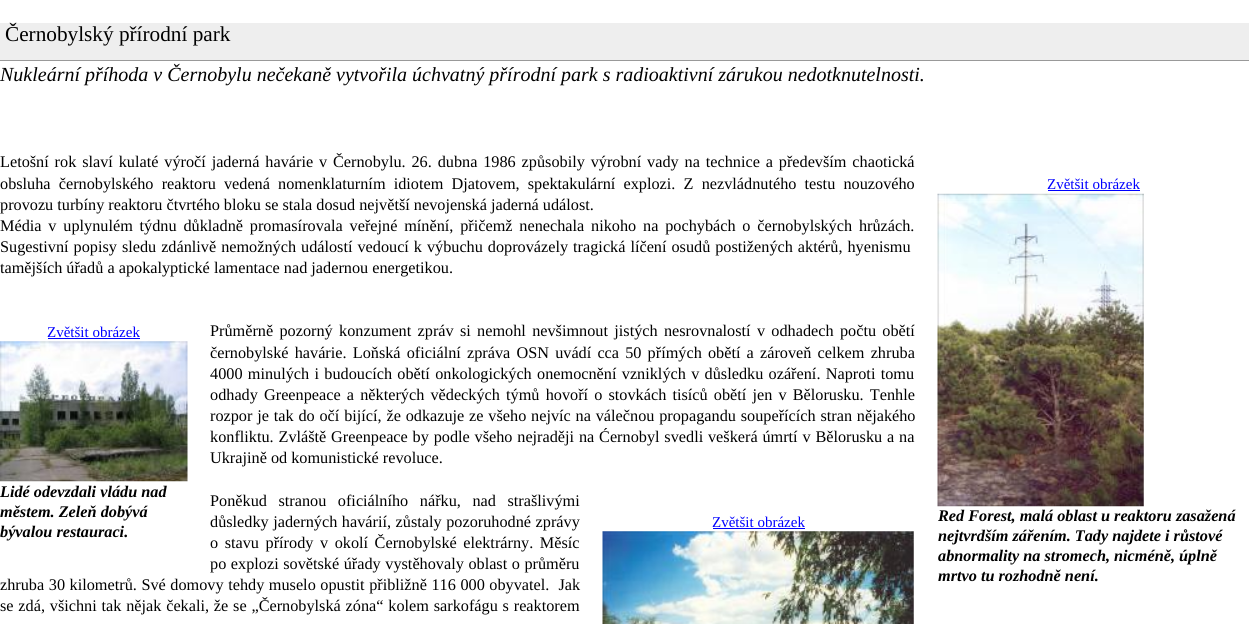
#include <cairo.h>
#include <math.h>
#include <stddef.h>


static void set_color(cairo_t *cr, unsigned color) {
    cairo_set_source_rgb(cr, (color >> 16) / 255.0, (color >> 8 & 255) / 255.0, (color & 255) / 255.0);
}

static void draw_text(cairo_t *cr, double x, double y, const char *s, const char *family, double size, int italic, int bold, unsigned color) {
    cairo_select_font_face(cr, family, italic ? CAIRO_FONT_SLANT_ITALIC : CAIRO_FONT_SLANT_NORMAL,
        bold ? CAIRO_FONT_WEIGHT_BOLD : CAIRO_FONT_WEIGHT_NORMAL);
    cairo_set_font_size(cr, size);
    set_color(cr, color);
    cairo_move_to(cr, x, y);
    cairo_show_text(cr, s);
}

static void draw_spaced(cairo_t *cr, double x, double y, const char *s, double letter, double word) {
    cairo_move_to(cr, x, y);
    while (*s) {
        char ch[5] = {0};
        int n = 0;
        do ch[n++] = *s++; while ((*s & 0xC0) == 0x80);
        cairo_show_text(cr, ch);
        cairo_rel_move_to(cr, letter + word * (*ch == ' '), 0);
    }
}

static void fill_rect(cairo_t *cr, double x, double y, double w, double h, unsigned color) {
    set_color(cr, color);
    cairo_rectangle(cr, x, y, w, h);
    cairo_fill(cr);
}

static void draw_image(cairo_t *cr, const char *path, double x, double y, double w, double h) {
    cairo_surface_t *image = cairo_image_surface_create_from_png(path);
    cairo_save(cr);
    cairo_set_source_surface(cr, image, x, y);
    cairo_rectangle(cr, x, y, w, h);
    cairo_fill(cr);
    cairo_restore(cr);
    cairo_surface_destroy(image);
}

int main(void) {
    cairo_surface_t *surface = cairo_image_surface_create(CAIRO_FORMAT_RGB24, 1249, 624);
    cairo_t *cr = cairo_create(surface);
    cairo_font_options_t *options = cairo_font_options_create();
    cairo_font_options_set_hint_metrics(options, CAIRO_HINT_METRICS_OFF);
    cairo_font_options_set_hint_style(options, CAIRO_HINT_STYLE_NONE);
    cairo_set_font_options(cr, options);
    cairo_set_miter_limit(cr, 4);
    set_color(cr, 0xFFFFFF);
    cairo_paint(cr);
    fill_rect(cr, 0, 23, 1249, 37, 0xEEEEEE);
    fill_rect(cr, 0, 60, 1249, 1, 0x999999);
    draw_text(cr, 5, 41, "Černobylský přírodní park", "Liberation Serif", 21.25, 0, 0, 0x000000);
    draw_text(cr, 0, 81, "Nukleární příhoda v Černobylu nečekaně vytvořila úchvatný přírodní park s radioaktivní zárukou nedotknutelnosti.", "Liberation Serif", 20, 1, 0, 0x000000);
    cairo_select_font_face(cr, "Liberation Serif", CAIRO_FONT_SLANT_NORMAL, CAIRO_FONT_WEIGHT_NORMAL);
    cairo_set_font_size(cr, 16.25);
    draw_spaced(cr, 0, 167, "Letošní rok slaví kulaté výročí jaderná havárie v Černobylu. 26. dubna 1986 způsobily výrobní vady na technice a především chaotická", 0, 1.8);
    draw_spaced(cr, 0, 189, "obsluha černobylského reaktoru vedená nomenklaturním idiotem Djatovem, spektakulární explozi. Z nezvládnutého testu nouzového", 0, 4.1);
    draw_text(cr, 0, 210, "provozu turbíny reaktoru čtvrtého bloku se stala dosud největší nevojenská jaderná událost.", "Liberation Serif", 16.25, 0, 0, 0x000000);
    draw_spaced(cr, 0, 231, "Média v uplynulém týdnu důkladně promasírovala veřejné mínění, přičemž nenechala nikoho na pochybách o černobylských hrůzách.", 0, 2.75);
    draw_spaced(cr, 0, 252, "Sugestivní popisy sledu zdánlivě nemožných událostí vedoucí k výbuchu doprovázely tragická líčení osudů postižených aktérů, hyenismu", 0, 0.9);
    draw_text(cr, 0, 273, "tamějších úřadů a apokalyptické lamentace nad jadernou energetikou.", "Liberation Serif", 16.25, 0, 0, 0x000000);
    draw_text(cr, 1047, 189, "Zvětšit obrázek", "Liberation Serif", 15, 0, 0, 0x0000FF);
    fill_rect(cr, 1048, 190, 92, 1, 0x0000FF);
    draw_image(cr, "assets/img1.png", 937, 193, 207, 314);
    draw_text(cr, 938, 521, "Red Forest, malá oblast u reaktoru zasažená", "Liberation Serif", 16.25, 1, 1, 0x000000);
    draw_text(cr, 938, 541, "nejtvrdším zářením. Tady najdete i růstové", "Liberation Serif", 16.25, 1, 1, 0x000000);
    draw_text(cr, 938, 561, "abnormality na stromech, nicméně, úplně", "Liberation Serif", 16.25, 1, 1, 0x000000);
    draw_text(cr, 938, 581, "mrtvo tu rozhodně není.", "Liberation Serif", 16.25, 1, 1, 0x000000);
    draw_text(cr, 47, 337, "Zvětšit obrázek", "Liberation Serif", 15, 0, 0, 0x0000FF);
    fill_rect(cr, 48, 338, 92, 1, 0x0000FF);
    draw_image(cr, "assets/img2.png", 0, 341, 188, 141);
    draw_text(cr, 0, 497, "Lidé odevzdali vládu nad", "Liberation Serif", 16.25, 1, 1, 0x000000);
    draw_text(cr, 0, 517, "městem. Zeleň dobývá", "Liberation Serif", 16.25, 1, 1, 0x000000);
    draw_text(cr, 0, 537, "bývalou restauraci.", "Liberation Serif", 16.25, 1, 1, 0x000000);
    cairo_select_font_face(cr, "Liberation Serif", CAIRO_FONT_SLANT_NORMAL, CAIRO_FONT_WEIGHT_NORMAL);
    draw_spaced(cr, 210, 336, "Průměrně pozorný konzument zpráv si nemohl nevšimnout jistých nesrovnalostí v odhadech počtu obětí", 0, 2.25);
    draw_spaced(cr, 210, 358, "černobylské havárie. Loňská oficiální zpráva OSN uvádí cca 50 přímých obětí a zároveň celkem zhruba", 0, 2.1);
    draw_spaced(cr, 210, 379, "4000 minulých i budoucích obětí onkologických onemocnění vzniklých v důsledku ozáření. Naproti tomu", 0, 1.25);
    draw_spaced(cr, 210, 400, "odhady Greenpeace a některých vědeckých týmů hovoří o stovkách tisíců obětí jen v Bělorusku. Tenhle", 0, 2.1);
    draw_spaced(cr, 210, 421, "rozpor je tak do očí bijící, že odkazuje ze všeho nejvíc na válečnou propagandu soupeřících stran nějakého", 0, 0.75);
    draw_spaced(cr, 210, 442, "konfliktu. Zvláště Greenpeace by podle všeho nejraději na Ćernobyl svedli veškerá úmrtí v Bělorusku a na", 0, 0.75);
    draw_text(cr, 210, 463, "Ukrajině od komunistické revoluce.", "Liberation Serif", 16.25, 0, 0, 0x000000);
    draw_spaced(cr, 210, 506, "Poněkud stranou oficiálního nářku, nad strašlivými", 0, 7.5);
    draw_spaced(cr, 210, 527, "důsledky jaderných havárií, zůstaly pozoruhodné zprávy", 0, 0.5);
    draw_spaced(cr, 210, 548, "o stavu přírody v okolí Černobylské elektrárny. Měsíc", 0, 2.5);
    draw_spaced(cr, 210, 569, "po explozi sovětské úřady vystěhovaly oblast o průměru", 0, 0.5);
    draw_spaced(cr, 0, 590, "zhruba 30 kilometrů. Své domovy tehdy muselo opustit přibližně 116 000 obyvatel.  Jak", 0, 0.5);
    draw_spaced(cr, 0, 611, "se zdá, všichni tak nějak čekali, že se „Černobylská zóna“ kolem sarkofágu s reaktorem", 0, 0.75);
    draw_text(cr, 712, 527, "Zvětšit obrázek", "Liberation Serif", 15, 0, 0, 0x0000FF);
    fill_rect(cr, 713, 528, 92, 1, 0x0000FF);
    draw_image(cr, "assets/img3.png", 602, 531, 312, 93);
    cairo_surface_write_to_png(surface, "output.png");
    cairo_font_options_destroy(options);
    cairo_destroy(cr);
    cairo_surface_destroy(surface);
    return 0;
}
